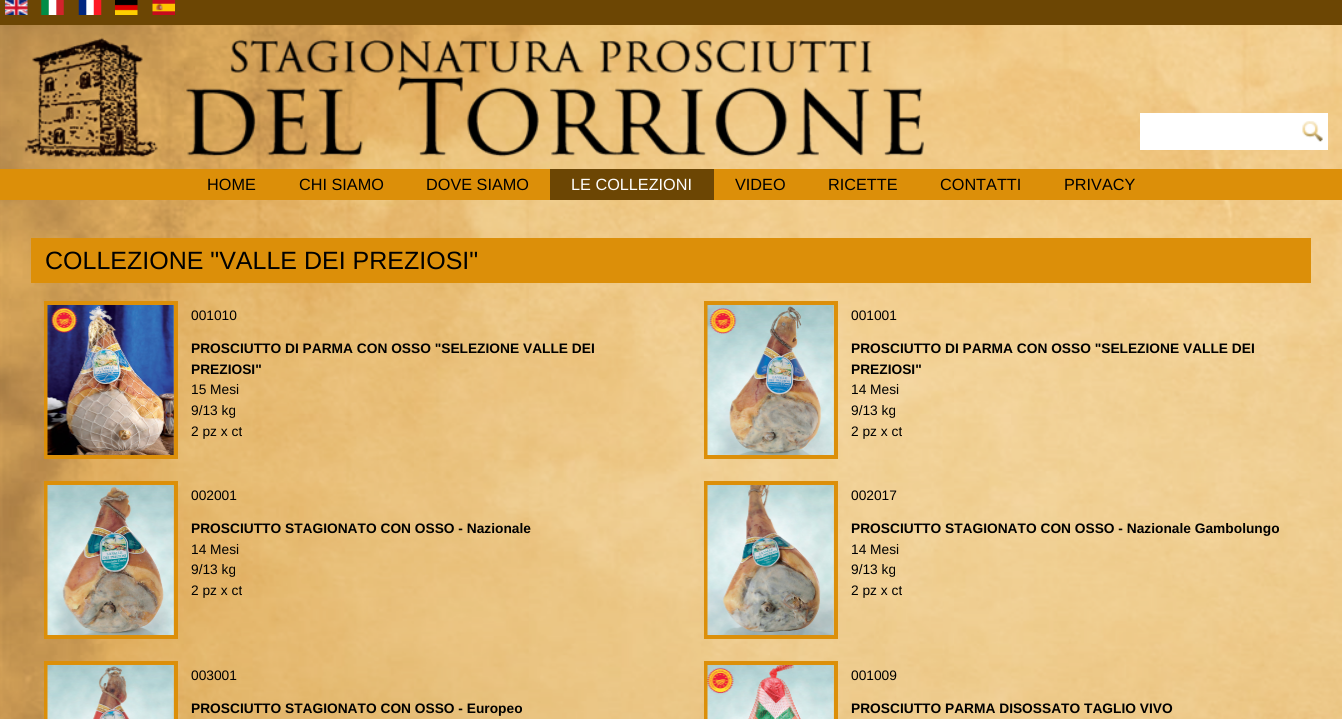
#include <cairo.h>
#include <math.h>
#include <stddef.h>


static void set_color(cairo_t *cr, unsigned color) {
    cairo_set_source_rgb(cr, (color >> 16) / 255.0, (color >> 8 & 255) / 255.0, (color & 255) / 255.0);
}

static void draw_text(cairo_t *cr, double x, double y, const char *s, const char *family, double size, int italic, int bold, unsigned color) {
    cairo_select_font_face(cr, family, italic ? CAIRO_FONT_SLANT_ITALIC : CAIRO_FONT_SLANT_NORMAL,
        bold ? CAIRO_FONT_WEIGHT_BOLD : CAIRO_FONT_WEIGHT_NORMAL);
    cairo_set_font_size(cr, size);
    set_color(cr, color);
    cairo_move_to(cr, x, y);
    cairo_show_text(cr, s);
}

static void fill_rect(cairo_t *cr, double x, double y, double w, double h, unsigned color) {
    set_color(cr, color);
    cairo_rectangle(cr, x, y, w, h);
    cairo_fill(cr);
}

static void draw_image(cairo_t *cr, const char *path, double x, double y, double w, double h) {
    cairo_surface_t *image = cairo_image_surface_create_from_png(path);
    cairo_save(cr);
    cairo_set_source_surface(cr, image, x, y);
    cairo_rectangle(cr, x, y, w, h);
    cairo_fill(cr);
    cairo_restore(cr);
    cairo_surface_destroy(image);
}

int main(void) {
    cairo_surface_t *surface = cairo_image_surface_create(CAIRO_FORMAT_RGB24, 1342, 719);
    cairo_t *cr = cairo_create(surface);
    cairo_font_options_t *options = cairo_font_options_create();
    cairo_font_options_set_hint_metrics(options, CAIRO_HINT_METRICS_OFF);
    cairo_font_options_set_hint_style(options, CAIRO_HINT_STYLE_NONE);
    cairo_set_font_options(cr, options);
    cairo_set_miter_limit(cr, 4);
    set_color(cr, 0xF9C771);
    cairo_paint(cr);
    draw_image(cr, "assets/img1.png", 0, 25, 1342, 694);
    fill_rect(cr, 0, 0, 1342, 25, 0x6C4604);
    draw_image(cr, "assets/img2.png", 17, 37, 907, 121);
    draw_image(cr, "assets/img3.png", 5, 0, 23, 15);
    draw_image(cr, "assets/img4.png", 41, 0, 23, 15);
    draw_image(cr, "assets/img5.png", 78, 0, 24, 15);
    draw_image(cr, "assets/img6.png", 115, 0, 23, 15);
    draw_image(cr, "assets/img7.png", 152, 0, 23, 15);
    fill_rect(cr, 1140, 113, 188, 37, 0xFFFFFF);
    draw_image(cr, "assets/img8.png", 1302, 121, 21, 21);
    fill_rect(cr, 0, 169, 1342, 31, 0xDC8F09);
    draw_text(cr, 207, 190, "HOME", "Liberation Sans", 16.25, 0, 0, 0x000000);
    draw_text(cr, 299, 190, "CHI SIAMO", "Liberation Sans", 16.25, 0, 0, 0x000000);
    draw_text(cr, 426, 190, "DOVE SIAMO", "Liberation Sans", 16.25, 0, 0, 0x000000);
    fill_rect(cr, 550, 169, 164, 31, 0x6C4604);
    draw_text(cr, 571, 190, "LE COLLEZIONI", "Liberation Sans", 16.25, 0, 0, 0xFFFFFF);
    draw_text(cr, 735, 190, "VIDEO", "Liberation Sans", 16.25, 0, 0, 0x000000);
    draw_text(cr, 828, 190, "RICETTE", "Liberation Sans", 16.25, 0, 0, 0x000000);
    draw_text(cr, 940, 190, "CONTATTI", "Liberation Sans", 16.25, 0, 0, 0x000000);
    draw_text(cr, 1064, 190, "PRIVACY", "Liberation Sans", 16.25, 0, 0, 0x000000);
    fill_rect(cr, 31, 238, 1280, 45, 0xDC8F09);
    draw_text(cr, 45, 269, "COLLEZIONE \"VALLE DEI PREZIOSI\"", "Liberation Sans", 25, 0, 0, 0x000000);
    cairo_rectangle(cr, 46, 303, 130, 154);
    set_color(cr, 0xDC8F09);
    cairo_set_line_width(cr, 4);
    cairo_stroke(cr);
    draw_image(cr, "assets/img9.png", 47, 305, 127, 150);
    draw_text(cr, 191, 320, "001010", "Liberation Sans", 13.75, 0, 0, 0x000000);
    draw_text(cr, 191, 353, "PROSCIUTTO DI PARMA CON OSSO \"SELEZIONE VALLE DEI", "Liberation Sans", 13.75, 0, 1, 0x000000);
    draw_text(cr, 191, 374, "PREZIOSI\"", "Liberation Sans", 13.75, 0, 1, 0x000000);
    draw_text(cr, 191, 394, "15 Mesi", "Liberation Sans", 13.75, 0, 0, 0x000000);
    draw_text(cr, 191, 415, "9/13 kg", "Liberation Sans", 13.75, 0, 0, 0x000000);
    draw_text(cr, 191, 436, "2 pz x ct", "Liberation Sans", 13.75, 0, 0, 0x000000);
    cairo_rectangle(cr, 706, 303, 130, 154);
    set_color(cr, 0xDC8F09);
    cairo_stroke(cr);
    draw_image(cr, "assets/img10.png", 707, 305, 127, 150);
    draw_text(cr, 851, 320, "001001", "Liberation Sans", 13.75, 0, 0, 0x000000);
    draw_text(cr, 851, 353, "PROSCIUTTO DI PARMA CON OSSO \"SELEZIONE VALLE DEI", "Liberation Sans", 13.75, 0, 1, 0x000000);
    draw_text(cr, 851, 374, "PREZIOSI\"", "Liberation Sans", 13.75, 0, 1, 0x000000);
    draw_text(cr, 851, 394, "14 Mesi", "Liberation Sans", 13.75, 0, 0, 0x000000);
    draw_text(cr, 851, 415, "9/13 kg", "Liberation Sans", 13.75, 0, 0, 0x000000);
    draw_text(cr, 851, 436, "2 pz x ct", "Liberation Sans", 13.75, 0, 0, 0x000000);
    cairo_rectangle(cr, 46, 483, 130, 154);
    set_color(cr, 0xDC8F09);
    cairo_stroke(cr);
    draw_image(cr, "assets/img11.png", 47, 485, 127, 150);
    draw_text(cr, 191, 500, "002001", "Liberation Sans", 13.75, 0, 0, 0x000000);
    draw_text(cr, 191, 533, "PROSCIUTTO STAGIONATO CON OSSO - Nazionale", "Liberation Sans", 13.75, 0, 1, 0x000000);
    draw_text(cr, 191, 554, "14 Mesi", "Liberation Sans", 13.75, 0, 0, 0x000000);
    draw_text(cr, 191, 574, "9/13 kg", "Liberation Sans", 13.75, 0, 0, 0x000000);
    draw_text(cr, 191, 595, "2 pz x ct", "Liberation Sans", 13.75, 0, 0, 0x000000);
    cairo_rectangle(cr, 706, 483, 130, 154);
    set_color(cr, 0xDC8F09);
    cairo_stroke(cr);
    draw_image(cr, "assets/img12.png", 707, 485, 127, 150);
    draw_text(cr, 851, 500, "002017", "Liberation Sans", 13.75, 0, 0, 0x000000);
    draw_text(cr, 851, 533, "PROSCIUTTO STAGIONATO CON OSSO - Nazionale Gambolungo", "Liberation Sans", 13.75, 0, 1, 0x000000);
    draw_text(cr, 851, 554, "14 Mesi", "Liberation Sans", 13.75, 0, 0, 0x000000);
    draw_text(cr, 851, 574, "9/13 kg", "Liberation Sans", 13.75, 0, 0, 0x000000);
    draw_text(cr, 851, 595, "2 pz x ct", "Liberation Sans", 13.75, 0, 0, 0x000000);
    cairo_rectangle(cr, 46, 663, 130, 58);
    set_color(cr, 0xDC8F09);
    cairo_stroke(cr);
    draw_image(cr, "assets/img13.png", 47, 665, 127, 54);
    draw_text(cr, 191, 680, "003001", "Liberation Sans", 13.75, 0, 0, 0x000000);
    draw_text(cr, 191, 713, "PROSCIUTTO STAGIONATO CON OSSO - Europeo", "Liberation Sans", 13.75, 0, 1, 0x000000);
    cairo_rectangle(cr, 706, 663, 130, 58);
    set_color(cr, 0xDC8F09);
    cairo_stroke(cr);
    draw_image(cr, "assets/img14.png", 707, 665, 127, 54);
    draw_text(cr, 851, 680, "001009", "Liberation Sans", 13.75, 0, 0, 0x000000);
    draw_text(cr, 851, 713, "PROSCIUTTO PARMA DISOSSATO TAGLIO VIVO", "Liberation Sans", 13.75, 0, 1, 0x000000);
    cairo_surface_write_to_png(surface, "output.png");
    cairo_font_options_destroy(options);
    cairo_destroy(cr);
    cairo_surface_destroy(surface);
    return 0;
}
